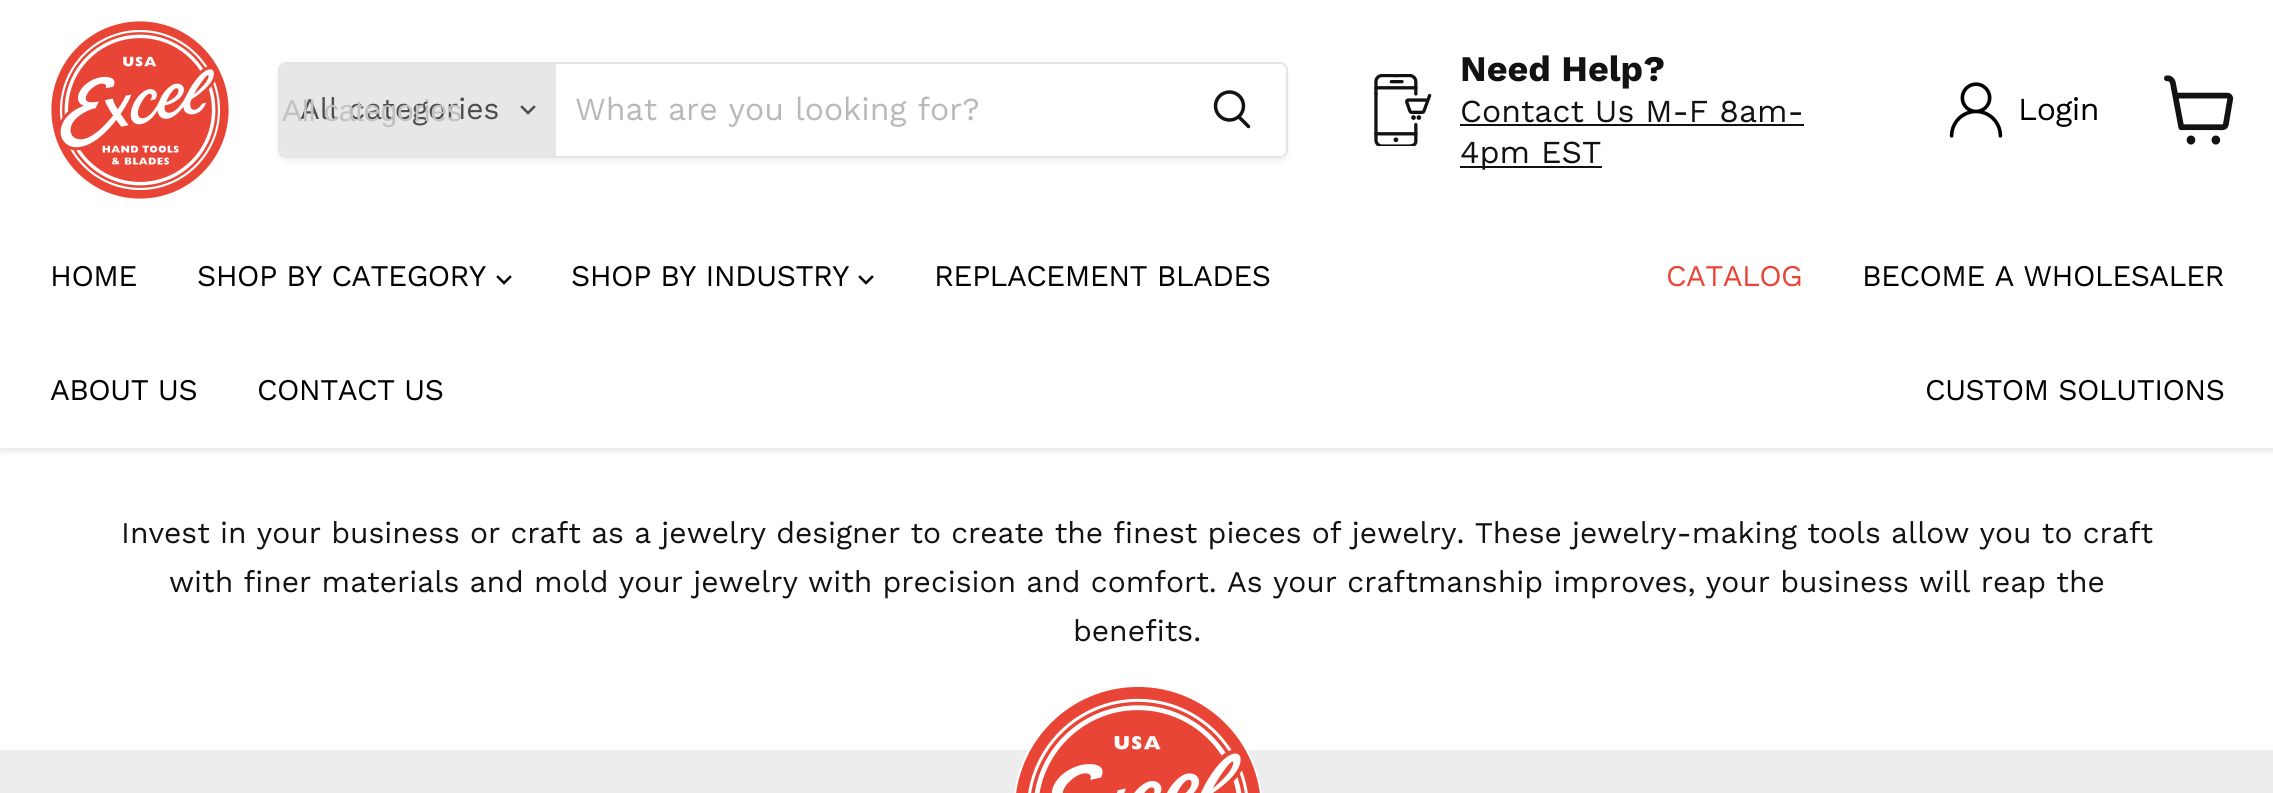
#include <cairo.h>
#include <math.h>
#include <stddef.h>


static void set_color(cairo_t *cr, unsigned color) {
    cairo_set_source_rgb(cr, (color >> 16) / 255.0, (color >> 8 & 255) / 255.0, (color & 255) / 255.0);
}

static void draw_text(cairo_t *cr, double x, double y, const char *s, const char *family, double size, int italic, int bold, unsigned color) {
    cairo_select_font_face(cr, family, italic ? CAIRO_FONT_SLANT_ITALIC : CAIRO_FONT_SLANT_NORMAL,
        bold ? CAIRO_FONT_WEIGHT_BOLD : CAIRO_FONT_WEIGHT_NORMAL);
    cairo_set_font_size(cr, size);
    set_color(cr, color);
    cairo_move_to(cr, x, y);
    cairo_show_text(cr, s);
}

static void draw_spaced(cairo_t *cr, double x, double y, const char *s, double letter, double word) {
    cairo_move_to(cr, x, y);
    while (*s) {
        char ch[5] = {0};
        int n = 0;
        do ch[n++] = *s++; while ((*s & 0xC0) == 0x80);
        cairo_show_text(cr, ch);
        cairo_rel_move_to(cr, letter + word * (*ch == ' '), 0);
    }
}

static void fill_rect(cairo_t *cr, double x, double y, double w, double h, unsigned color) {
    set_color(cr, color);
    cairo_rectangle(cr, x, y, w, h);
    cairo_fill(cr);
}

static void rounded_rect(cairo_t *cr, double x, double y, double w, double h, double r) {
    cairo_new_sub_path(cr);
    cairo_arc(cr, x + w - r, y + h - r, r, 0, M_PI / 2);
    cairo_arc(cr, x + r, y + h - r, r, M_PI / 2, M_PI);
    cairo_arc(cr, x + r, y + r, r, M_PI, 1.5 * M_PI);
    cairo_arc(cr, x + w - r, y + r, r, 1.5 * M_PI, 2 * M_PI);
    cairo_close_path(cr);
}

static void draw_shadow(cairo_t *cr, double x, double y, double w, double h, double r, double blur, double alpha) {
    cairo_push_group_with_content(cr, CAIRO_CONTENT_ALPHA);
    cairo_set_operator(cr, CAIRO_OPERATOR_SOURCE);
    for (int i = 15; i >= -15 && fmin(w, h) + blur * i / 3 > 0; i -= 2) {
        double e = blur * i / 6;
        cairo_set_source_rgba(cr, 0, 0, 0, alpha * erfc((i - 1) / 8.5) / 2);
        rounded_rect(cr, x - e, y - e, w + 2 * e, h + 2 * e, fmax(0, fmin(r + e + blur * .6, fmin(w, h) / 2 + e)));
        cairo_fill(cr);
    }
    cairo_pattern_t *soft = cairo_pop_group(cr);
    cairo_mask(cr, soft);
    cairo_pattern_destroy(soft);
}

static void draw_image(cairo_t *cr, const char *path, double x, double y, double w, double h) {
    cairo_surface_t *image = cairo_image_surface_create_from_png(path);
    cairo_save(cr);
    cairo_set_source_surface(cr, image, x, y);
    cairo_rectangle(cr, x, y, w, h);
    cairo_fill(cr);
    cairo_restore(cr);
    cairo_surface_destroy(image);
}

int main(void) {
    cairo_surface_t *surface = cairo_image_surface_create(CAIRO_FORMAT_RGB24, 2273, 793);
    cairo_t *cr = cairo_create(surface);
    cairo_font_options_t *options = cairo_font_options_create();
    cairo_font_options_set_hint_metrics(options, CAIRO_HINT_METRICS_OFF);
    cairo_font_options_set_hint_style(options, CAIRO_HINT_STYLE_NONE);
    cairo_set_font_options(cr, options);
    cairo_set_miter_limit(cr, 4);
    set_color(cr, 0xFFFFFF);
    cairo_paint(cr);
    set_color(cr, 0x808080);
    draw_shadow(cr, 0, 2, 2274, 448, 0, 4, 0.25);
    fill_rect(cr, 0, 0, 2273, 448, 0xFFFFFF);
    draw_image(cr, "assets/img1.png", 51, 21, 178, 178);
    cairo_save(cr);
    cairo_set_fill_rule(cr, CAIRO_FILL_RULE_EVEN_ODD);
    cairo_new_path(cr);
    cairo_move_to(cr, 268, 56);
    cairo_line_to(cr, 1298, 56);
    cairo_line_to(cr, 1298, 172);
    cairo_line_to(cr, 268, 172);
    cairo_close_path(cr);
    cairo_move_to(cr, 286, 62);
    cairo_line_to(cr, 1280, 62);
    cairo_curve_to(cr, 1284.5, 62, 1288, 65.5, 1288, 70);
    cairo_line_to(cr, 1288, 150);
    cairo_curve_to(cr, 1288, 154.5, 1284.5, 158, 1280, 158);
    cairo_line_to(cr, 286, 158);
    cairo_curve_to(cr, 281.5, 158, 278, 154.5, 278, 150);
    cairo_line_to(cr, 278, 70);
    cairo_curve_to(cr, 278, 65.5, 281.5, 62, 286, 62);
    cairo_close_path(cr);
    cairo_clip(cr);
    set_color(cr, 0x808080);
    draw_shadow(cr, 278, 66, 1010, 96, 8, 3, 0.11);
    cairo_restore(cr);
    rounded_rect(cr, 279, 63, 1008, 94, 7);
    cairo_set_source_rgba(cr, 0.502, 0.502, 0.502, 0.2);
    cairo_stroke(cr);
    set_color(cr, 0xE7E7E7);
    cairo_new_path(cr);
    cairo_move_to(cr, 286, 64);
    cairo_line_to(cr, 556, 64);
    cairo_line_to(cr, 556, 156);
    cairo_line_to(cr, 286, 156);
    cairo_curve_to(cr, 282.5, 156, 280, 153.5, 280, 150);
    cairo_line_to(cr, 280, 70);
    cairo_curve_to(cr, 280, 66.5, 282.5, 64, 286, 64);
    cairo_close_path(cr);
    cairo_fill(cr);
    draw_text(cr, 300, 119, "All categories", "Work Sans", 30, 0, 0, 0x4D4D4D);
    draw_text(cr, 282, 121, "All categories", "Liberation Sans", 30, 0, 0, 0xC1C1C1);
    cairo_new_path(cr);
    cairo_move_to(cr, 528, 113);
    cairo_line_to(cr, 534, 107);
    cairo_move_to(cr, 528, 113);
    cairo_line_to(cr, 522, 107);
    set_color(cr, 0x4D4D4D);
    cairo_set_line_width(cr, 2.5);
    cairo_set_line_cap(cr, CAIRO_LINE_CAP_SQUARE);
    cairo_stroke(cr);
    draw_text(cr, 575, 120, "What are you looking for?", "Work Sans", 32, 0, 0, 0xB8B8B8);
    cairo_new_path(cr);
    cairo_move_to(cr, 1248.5, 126.5);
    cairo_line_to(cr, 1239, 117);
    set_color(cr, 0x121212);
    cairo_set_line_width(cr, 3.5);
    cairo_set_line_cap(cr, CAIRO_LINE_CAP_ROUND);
    cairo_stroke(cr);
    cairo_arc(cr, 1229.5, 106, 14, 0, 2 * M_PI);
    cairo_set_line_cap(cr, CAIRO_LINE_CAP_BUTT);
    cairo_stroke(cr);
    draw_image(cr, "assets/img2.png", 1374, 74, 58, 72);
    draw_text(cr, 1460, 81, "Need Help?", "Work Sans", 36, 0, 1, 0x121212);
    draw_text(cr, 1460, 122, "Contact Us M-F 8am-", "Work Sans", 32, 0, 0, 0x121212);
    fill_rect(cr, 1460, 124, 344, 2, 0x121212);
    fill_rect(cr, 1460, 166, 142, 2, 0x121212);
    draw_text(cr, 1460, 163, "4pm EST", "Work Sans", 32, 0, 0, 0x121212);
    draw_image(cr, "assets/img3.png", 1949, 82, 54, 56);
    set_color(cr, 0x000000);
    draw_spaced(cr, 2018, 120, "Login", -0.5, 0);
    draw_image(cr, "assets/img4.png", 2164, 75, 70, 70);
    cairo_set_font_size(cr, 30);
    draw_spaced(cr, 50, 286, "HOME", -0.6, 0);
    draw_spaced(cr, 197, 286, "SHOP BY CATEGORY", -0.6, 0);
    cairo_new_path(cr);
    cairo_move_to(cr, 504, 283);
    cairo_line_to(cr, 510, 277);
    cairo_move_to(cr, 504, 283);
    cairo_line_to(cr, 498, 277);
    cairo_set_line_width(cr, 2.5);
    cairo_set_line_cap(cr, CAIRO_LINE_CAP_SQUARE);
    cairo_stroke(cr);
    draw_spaced(cr, 571, 286, "SHOP BY INDUSTRY", -0.6, 0);
    cairo_new_path(cr);
    cairo_move_to(cr, 866, 283);
    cairo_line_to(cr, 872, 277);
    cairo_move_to(cr, 866, 283);
    cairo_line_to(cr, 860, 277);
    cairo_stroke(cr);
    draw_spaced(cr, 934, 286, "REPLACEMENT BLADES", -0.6, 0);
    draw_spaced(cr, 50, 400, "ABOUT US", -0.6, 0);
    draw_spaced(cr, 257, 400, "CONTACT US", -0.6, 0);
    set_color(cr, 0xE84536);
    draw_spaced(cr, 1666, 286, "CATALOG", -0.6, 0);
    set_color(cr, 0x000000);
    draw_spaced(cr, 1862, 286, "BECOME A WHOLESALER", -0.6, 0);
    draw_spaced(cr, 1925, 400, "CUSTOM SOLUTIONS", -0.6, 0);
    draw_text(cr, 121, 543, "Invest in your business or craft as a jewelry designer to create the finest pieces of jewelry. These jewelry-making tools allow you to craft", "Work Sans", 30, 0, 0, 0x121212);
    draw_text(cr, 169, 592, "with finer materials and mold your jewelry with precision and comfort. As your craftmanship improves, your business will reap the", "Work Sans", 30, 0, 0, 0x121212);
    draw_text(cr, 1073, 641, "benefits.", "Work Sans", 30, 0, 0, 0x121212);
    fill_rect(cr, 0, 750, 2273, 43, 0xEDEDED);
    draw_image(cr, "assets/img5.png", 1014, 686, 248, 107);
    cairo_surface_write_to_png(surface, "output.png");
    cairo_font_options_destroy(options);
    cairo_destroy(cr);
    cairo_surface_destroy(surface);
    return 0;
}
